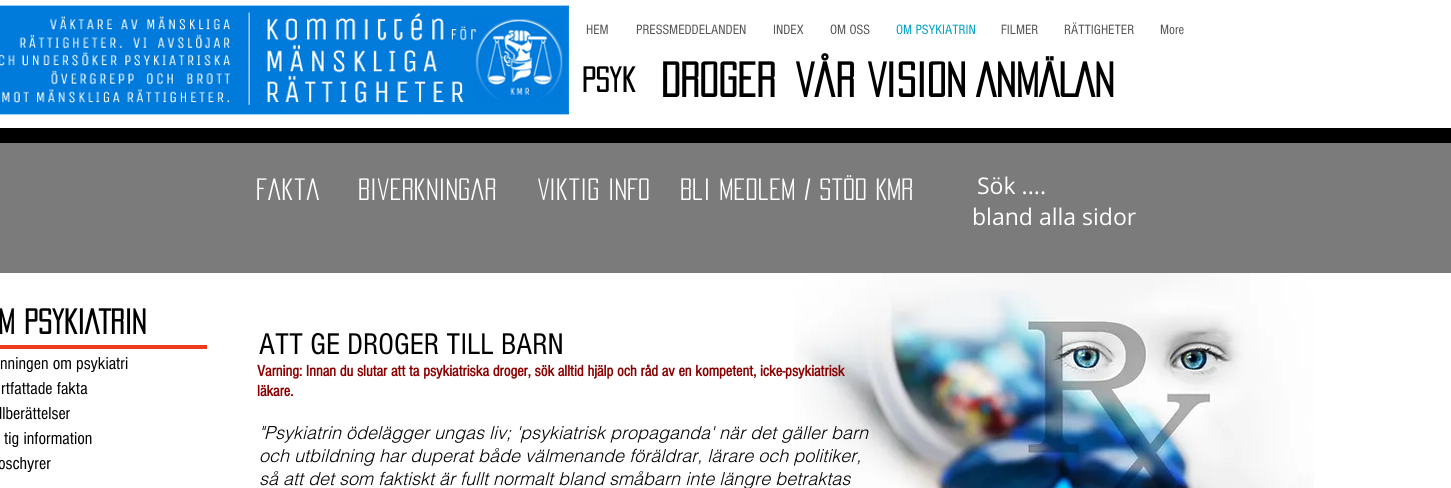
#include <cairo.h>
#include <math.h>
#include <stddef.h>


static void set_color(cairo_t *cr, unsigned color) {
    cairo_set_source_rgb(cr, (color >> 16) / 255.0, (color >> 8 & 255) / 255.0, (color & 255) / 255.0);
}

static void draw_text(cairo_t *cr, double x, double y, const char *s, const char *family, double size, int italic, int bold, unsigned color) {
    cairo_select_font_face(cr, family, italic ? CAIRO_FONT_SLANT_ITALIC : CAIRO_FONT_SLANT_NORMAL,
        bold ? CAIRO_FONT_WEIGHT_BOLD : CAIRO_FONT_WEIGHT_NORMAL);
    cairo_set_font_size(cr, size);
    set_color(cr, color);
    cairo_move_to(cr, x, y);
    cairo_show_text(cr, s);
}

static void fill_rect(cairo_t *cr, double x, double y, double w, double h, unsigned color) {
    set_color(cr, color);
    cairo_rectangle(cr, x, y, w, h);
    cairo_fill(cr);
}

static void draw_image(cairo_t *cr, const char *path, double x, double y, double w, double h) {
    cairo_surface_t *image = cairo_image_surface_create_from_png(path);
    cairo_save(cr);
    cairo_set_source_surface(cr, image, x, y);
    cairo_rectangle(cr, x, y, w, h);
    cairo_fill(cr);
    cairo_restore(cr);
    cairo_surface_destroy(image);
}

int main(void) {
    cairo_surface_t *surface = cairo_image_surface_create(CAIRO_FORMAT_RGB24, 1451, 488);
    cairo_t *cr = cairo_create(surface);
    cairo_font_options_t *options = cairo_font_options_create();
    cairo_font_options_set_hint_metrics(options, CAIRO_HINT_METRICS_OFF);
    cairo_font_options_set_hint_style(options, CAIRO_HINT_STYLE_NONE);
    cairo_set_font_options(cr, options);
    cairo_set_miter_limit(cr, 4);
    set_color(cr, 0xFFFFFF);
    cairo_paint(cr);
    draw_image(cr, "assets/img1.png", 0, 5, 569, 110);
    draw_text(cr, 586, 34, "HEM", "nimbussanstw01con", 14, 0, 0, 0x555555);
    draw_text(cr, 636, 34, "PRESSMEDDELANDEN", "nimbussanstw01con", 14, 0, 0, 0x555555);
    draw_text(cr, 773, 34, "INDEX", "nimbussanstw01con", 14, 0, 0, 0x555555);
    draw_text(cr, 830, 34, "OM OSS", "nimbussanstw01con", 14, 0, 0, 0x555555);
    draw_text(cr, 896, 34, "OM PSYKIATRIN", "nimbussanstw01con", 14, 0, 0, 0x00A1C3);
    draw_text(cr, 1001, 34, "FILMER", "nimbussanstw01con", 14, 0, 0, 0x555555);
    draw_text(cr, 1064, 34, "RÄTTIGHETER", "nimbussanstw01con", 14, 0, 0, 0x555555);
    draw_text(cr, 1160, 34, "More", "nimbussanstw01con", 14, 0, 0, 0x555555);
    draw_text(cr, 582, 92, "Psyk", "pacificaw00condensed", 31, 0, 1, 0x000000);
    draw_text(cr, 661, 97, "Droger", "pacificaw00condensed", 43, 0, 1, 0x000000);
    draw_text(cr, 796, 97, "Vår Vision", "pacificaw00condensed", 43, 0, 1, 0x000000);
    draw_text(cr, 976, 97, "ANMÄLAN", "pacificaw00condensed", 43, 0, 1, 0x000000);
    fill_rect(cr, 0, 128, 1451, 15, 0x000000);
    fill_rect(cr, 0, 143, 1451, 130, 0x7B7B7B);
    draw_text(cr, 256, 200, "Fakta", "pacificaw00condensed", 27, 0, 0, 0xFFFFFF);
    draw_text(cr, 358, 200, "Biverkningar", "pacificaw00condensed", 27, 0, 0, 0xFFFFFF);
    draw_text(cr, 538, 200, "Viktig INFO", "pacificaw00condensed", 27, 0, 0, 0xFFFFFF);
    draw_text(cr, 680, 200, "Bli Medlem / Stöd KMR", "pacificaw00condensed", 27, 0, 0, 0xFFFFFF);
    draw_text(cr, 977, 194, "Sök ....", "Open Sans", 23, 0, 0, 0xFFFFFF);
    draw_text(cr, 972, 225, "bland alla sidor", "Open Sans", 23, 0, 0, 0xFFFFFF);
    draw_text(cr, -2, 334, "M PSYKIATRIN", "pacificaw00condensed", 31, 0, 1, 0x000000);
    fill_rect(cr, 0, 345, 207, 4, 0xED3A1E);
    draw_text(cr, 0, 369, "nningen om psykiatri", "nimbussanstw01con", 18, 0, 0, 0x000000);
    draw_text(cr, 1, 394, "rtfattade fakta", "nimbussanstw01con", 18, 0, 0, 0x000000);
    draw_text(cr, -1, 419, "llberättelser", "nimbussanstw01con", 18, 0, 0, 0x000000);
    draw_text(cr, 4, 444, "tig information", "nimbussanstw01con", 18, 0, 0, 0x000000);
    draw_text(cr, -2, 469, "oschyrer", "nimbussanstw01con", 18, 0, 0, 0x000000);
    draw_text(cr, 259, 354, "ATT GE DROGER TILL BARN", "nimbussanstw01con", 31, 0, 0, 0x000000);
    draw_image(cr, "assets/img2.png", 794, 273, 520, 215);
    draw_text(cr, 257, 376, "Varning: Innan du slutar att ta psykiatriska droger, sök alltid hjälp och råd av en kompetent, icke-psykiatrisk", "nimbussanstw01con", 16, 0, 1, 0x8B0000);
    draw_text(cr, 257, 396, "läkare.", "nimbussanstw01con", 16, 0, 1, 0x8B0000);
    draw_text(cr, 259, 439, "\"Psykiatrin ödelägger ungas liv; 'psykiatrisk propaganda' när det gäller barn", "helvetica Light", 18, 1, 0, 0x000000);
    draw_text(cr, 259, 462, "och utbildning har duperat både välmenande föräldrar, lärare och politiker,", "helvetica Light", 18, 1, 0, 0x000000);
    draw_text(cr, 259, 485, "så att det som faktiskt är fullt normalt bland småbarn inte längre betraktas", "helvetica Light", 18, 1, 0, 0x000000);
    cairo_surface_write_to_png(surface, "output.png");
    cairo_font_options_destroy(options);
    cairo_destroy(cr);
    cairo_surface_destroy(surface);
    return 0;
}
